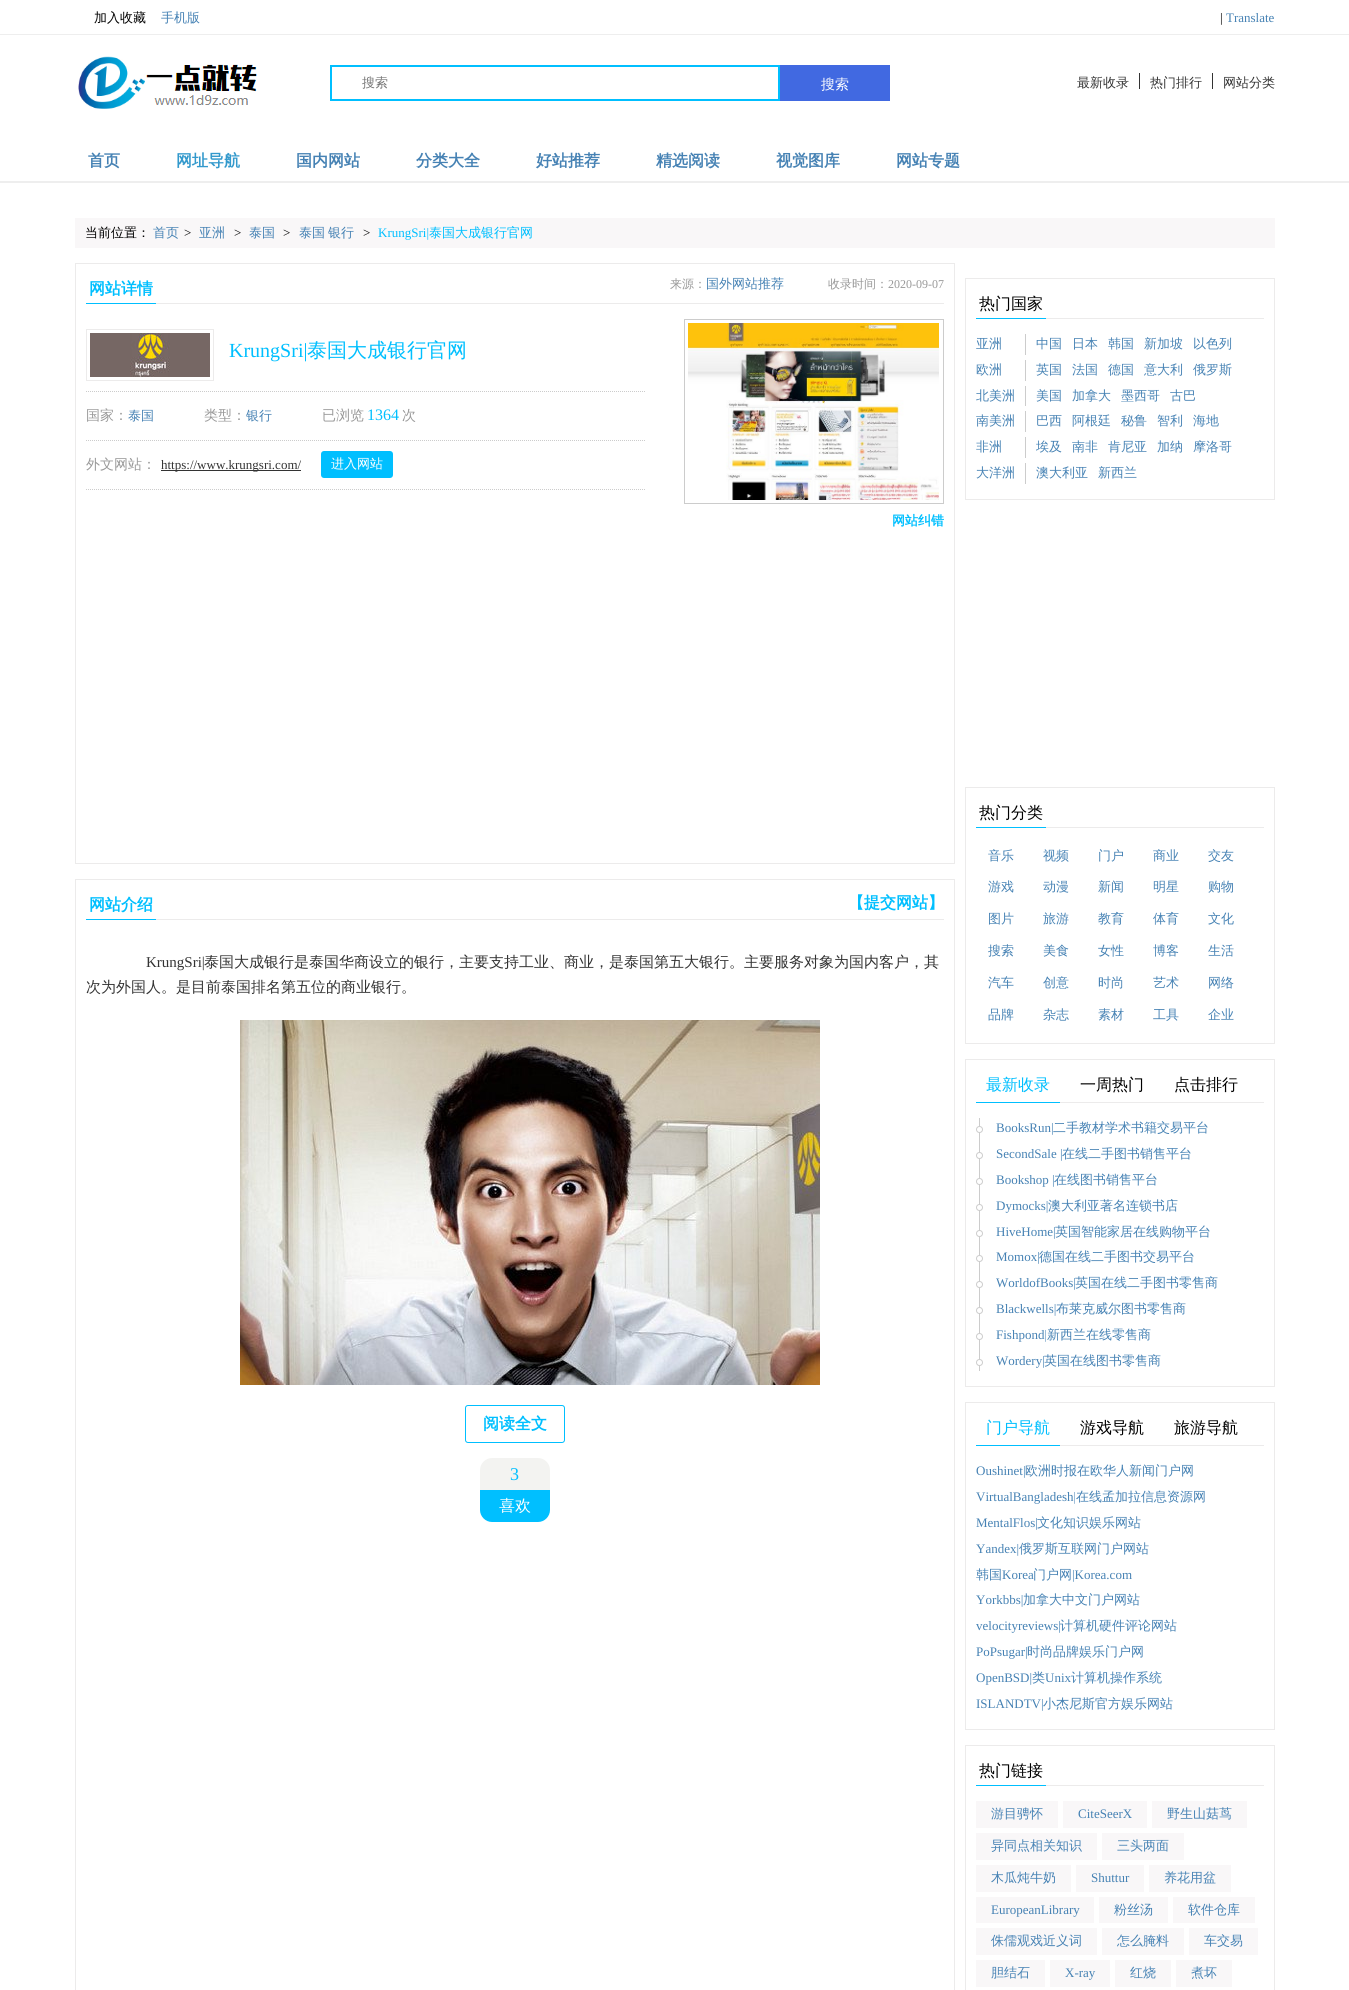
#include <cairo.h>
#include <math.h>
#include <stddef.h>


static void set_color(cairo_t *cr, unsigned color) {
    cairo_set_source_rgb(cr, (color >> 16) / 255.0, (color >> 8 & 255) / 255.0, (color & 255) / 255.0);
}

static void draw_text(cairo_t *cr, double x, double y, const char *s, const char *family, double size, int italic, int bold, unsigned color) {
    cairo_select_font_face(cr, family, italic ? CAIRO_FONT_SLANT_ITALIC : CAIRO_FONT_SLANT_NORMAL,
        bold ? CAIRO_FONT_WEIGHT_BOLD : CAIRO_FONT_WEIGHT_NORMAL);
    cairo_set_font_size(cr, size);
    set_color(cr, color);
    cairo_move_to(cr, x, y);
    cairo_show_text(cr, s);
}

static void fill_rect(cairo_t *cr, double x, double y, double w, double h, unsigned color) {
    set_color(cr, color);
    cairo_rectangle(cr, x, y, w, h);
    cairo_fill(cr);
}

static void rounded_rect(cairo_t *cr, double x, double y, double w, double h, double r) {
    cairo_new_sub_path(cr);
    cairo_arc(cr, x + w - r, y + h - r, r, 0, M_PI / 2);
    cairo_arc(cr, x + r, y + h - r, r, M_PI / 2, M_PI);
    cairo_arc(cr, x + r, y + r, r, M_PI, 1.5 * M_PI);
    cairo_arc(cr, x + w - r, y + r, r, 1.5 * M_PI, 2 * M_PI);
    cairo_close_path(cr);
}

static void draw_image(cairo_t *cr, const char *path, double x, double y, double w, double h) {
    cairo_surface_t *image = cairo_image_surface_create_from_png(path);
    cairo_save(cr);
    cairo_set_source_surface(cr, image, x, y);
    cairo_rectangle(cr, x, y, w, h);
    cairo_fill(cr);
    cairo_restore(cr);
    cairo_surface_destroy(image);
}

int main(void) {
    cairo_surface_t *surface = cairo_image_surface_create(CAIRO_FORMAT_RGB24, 1349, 1990);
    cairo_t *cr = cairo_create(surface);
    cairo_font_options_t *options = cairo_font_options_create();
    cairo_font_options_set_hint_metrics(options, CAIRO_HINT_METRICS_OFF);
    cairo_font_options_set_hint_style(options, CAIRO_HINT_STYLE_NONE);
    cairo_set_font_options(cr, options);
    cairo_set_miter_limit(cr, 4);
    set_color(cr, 0xFFFFFF);
    cairo_paint(cr);
    fill_rect(cr, 0, 34, 1349, 1, 0xEEEEEE);
    draw_text(cr, 94, 22, "加入收藏", "WenQuanYi Zen Hei Medium", 13, 0, 0, 0x000000);
    draw_text(cr, 161, 22, "手机版", "WenQuanYi Zen Hei Medium", 13, 0, 0, 0x4682B4);
    draw_text(cr, 1220, 22, "|", "Liberation Serif", 13, 0, 0, 0x000000);
    draw_text(cr, 1226, 22, "Translate", "Liberation Serif", 13, 0, 0, 0x4682B4);
    draw_image(cr, "assets/img1.png", 78, 56, 179, 53);
    cairo_rectangle(cr, 331, 66, 448, 34);
    set_color(cr, 0x00BFFF);
    cairo_stroke(cr);
    draw_text(cr, 362, 87, "搜索", "WenQuanYi Zen Hei Medium", 13, 0, 0, 0x757575);
    fill_rect(cr, 780, 65, 110, 36, 0x4169E1);
    draw_text(cr, 821, 89, "搜索", "WenQuanYi Zen Hei Medium", 14, 0, 0, 0xFFFFFF);
    fill_rect(cr, 1139, 73, 1, 16, 0x333333);
    draw_text(cr, 1077, 87, "最新收录", "WenQuanYi Zen Hei Medium", 13, 0, 0, 0x333333);
    fill_rect(cr, 1212, 73, 1, 16, 0x333333);
    draw_text(cr, 1150, 87, "热门排行", "WenQuanYi Zen Hei Medium", 13, 0, 0, 0x333333);
    draw_text(cr, 1223, 87, "网站分类", "WenQuanYi Zen Hei Medium", 13, 0, 0, 0x333333);
    fill_rect(cr, 0, 181, 1349, 2, 0xEEEEEE);
    draw_text(cr, 88, 166, "首页", "WenQuanYi Zen Hei", 16, 0, 1, 0x4682B4);
    draw_text(cr, 176, 166, "网址导航", "WenQuanYi Zen Hei", 16, 0, 1, 0x3399CC);
    draw_text(cr, 296, 166, "国内网站", "WenQuanYi Zen Hei", 16, 0, 1, 0x4682B4);
    draw_text(cr, 416, 166, "分类大全", "WenQuanYi Zen Hei", 16, 0, 1, 0x4682B4);
    draw_text(cr, 536, 166, "好站推荐", "WenQuanYi Zen Hei", 16, 0, 1, 0x4682B4);
    draw_text(cr, 656, 166, "精选阅读", "WenQuanYi Zen Hei", 16, 0, 1, 0x4682B4);
    draw_text(cr, 776, 166, "视觉图库", "WenQuanYi Zen Hei", 16, 0, 1, 0x4682B4);
    draw_text(cr, 896, 166, "网站专题", "WenQuanYi Zen Hei", 16, 0, 1, 0x4682B4);
    fill_rect(cr, 75, 218, 1200, 30, 0xF9F7F8);
    draw_text(cr, 85, 237, "当前位置：", "WenQuanYi Zen Hei Medium", 13, 0, 0, 0x000000);
    draw_text(cr, 153, 237, "首页", "WenQuanYi Zen Hei Medium", 13, 0, 0, 0x4682B4);
    draw_text(cr, 184, 237, ">", "Liberation Serif", 13, 0, 0, 0x000000);
    draw_text(cr, 199, 237, "亚洲", "WenQuanYi Zen Hei Medium", 13, 0, 0, 0x4682B4);
    draw_text(cr, 234, 237, ">", "Liberation Serif", 13, 0, 0, 0x000000);
    draw_text(cr, 249, 237, "泰国", "WenQuanYi Zen Hei Medium", 13, 0, 0, 0x4682B4);
    draw_text(cr, 283, 237, ">", "Liberation Serif", 13, 0, 0, 0x000000);
    draw_text(cr, 299, 237, "泰国", "WenQuanYi Zen Hei Medium", 13, 0, 0, 0x4682B4);
    draw_text(cr, 328, 237, "银行", "WenQuanYi Zen Hei Medium", 13, 0, 0, 0x4682B4);
    draw_text(cr, 363, 237, ">", "Liberation Serif", 13, 0, 0, 0x000000);
    draw_text(cr, 378, 237, "KrungSri|", "Liberation Serif", 13, 0, 0, 0x00BFFF);
    draw_text(cr, 429, 237, "泰国大成银行官网", "WenQuanYi Zen Hei Medium", 13, 0, 0, 0x00BFFF);
    cairo_rectangle(cr, 75.5, 263.5, 879, 600);
    set_color(cr, 0xECEBEB);
    cairo_set_line_width(cr, 1);
    cairo_stroke(cr);
    fill_rect(cr, 156, 303, 788, 1, 0xECEBEB);
    fill_rect(cr, 86, 303, 70, 1, 0x00BFFF);
    draw_text(cr, 89, 294, "网站详情", "WenQuanYi Zen Hei", 16, 0, 1, 0x00BFFF);
    draw_text(cr, 670, 288, "来源：", "WenQuanYi Zen Hei Medium", 12, 0, 0, 0x999999);
    draw_text(cr, 706, 288, "国外网站推荐", "WenQuanYi Zen Hei Medium", 13, 0, 0, 0x4682B4);
    draw_text(cr, 828, 288, "收录时间：", "WenQuanYi Zen Hei Medium", 12, 0, 0, 0x999999);
    draw_text(cr, 888, 288, "2020-09-07", "Liberation Serif", 12, 0, 0, 0x999999);
    cairo_new_path(cr);
    cairo_move_to(cr, 86, 391.5);
    cairo_line_to(cr, 646, 391.5);
    set_color(cr, 0xCCCCCC);
    cairo_set_dash(cr, (double[]){1, 1}, 2, 0);
    cairo_stroke(cr);
    cairo_rectangle(cr, 86.5, 329.5, 127, 51);
    set_color(cr, 0xECEBEB);
    cairo_set_dash(cr, NULL, 0, 0);
    cairo_stroke(cr);
    draw_image(cr, "assets/img2.png", 90, 333, 120, 44);
    draw_text(cr, 229, 357, "KrungSri|", "Liberation Serif", 20, 0, 0, 0x00BFFF);
    draw_text(cr, 307, 357, "泰国大成银行官网", "WenQuanYi Zen Hei Medium", 20, 0, 0, 0x00BFFF);
    cairo_new_path(cr);
    cairo_move_to(cr, 86, 440.5);
    cairo_line_to(cr, 646, 440.5);
    set_color(cr, 0xCCCCCC);
    cairo_set_dash(cr, (double[]){1, 1}, 2, 0);
    cairo_stroke(cr);
    draw_text(cr, 86, 420, "国家：", "WenQuanYi Zen Hei Medium", 14, 0, 0, 0x999999);
    draw_text(cr, 128, 420, "泰国", "WenQuanYi Zen Hei Medium", 13, 0, 0, 0x4682B4);
    draw_text(cr, 204, 420, "类型：", "WenQuanYi Zen Hei Medium", 14, 0, 0, 0x999999);
    draw_text(cr, 246, 420, "银行", "WenQuanYi Zen Hei Medium", 13, 0, 0, 0x4682B4);
    draw_text(cr, 322, 420, "已浏览", "WenQuanYi Zen Hei Medium", 14, 0, 0, 0x999999);
    draw_text(cr, 367, 420, "1364", "Liberation Serif", 16, 0, 0, 0x00BFFF);
    draw_text(cr, 402, 420, "次", "WenQuanYi Zen Hei Medium", 14, 0, 0, 0x999999);
    cairo_new_path(cr);
    cairo_move_to(cr, 86, 489.5);
    cairo_line_to(cr, 646, 489.5);
    set_color(cr, 0xCCCCCC);
    cairo_stroke(cr);
    draw_text(cr, 86, 469, "外文网站：", "WenQuanYi Zen Hei Medium", 14, 0, 0, 0x999999);
    fill_rect(cr, 161, 470, 140, 1, 0x333333);
    draw_text(cr, 161, 469, "https://www.krungsri.com/", "Liberation Serif", 13, 0, 0, 0x333333);
    set_color(cr, 0x00BFFF);
    rounded_rect(cr, 321, 451, 72, 27, 3);
    cairo_fill(cr);
    draw_text(cr, 331, 468, "进入网站", "WenQuanYi Zen Hei Medium", 13, 0, 0, 0xFFFFFF);
    cairo_rectangle(cr, 684.5, 319.5, 259, 184);
    set_color(cr, 0xCCCCCC);
    cairo_set_dash(cr, NULL, 0, 0);
    cairo_stroke(cr);
    draw_image(cr, "assets/img3.png", 688, 323, 251, 177);
    draw_text(cr, 892, 525, "网站纠错", "WenQuanYi Zen Hei", 13, 0, 1, 0x00BFFF);
    cairo_rectangle(cr, 75.5, 879.5, 879, 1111);
    set_color(cr, 0xECEBEB);
    cairo_stroke(cr);
    fill_rect(cr, 156, 919, 788, 1, 0xECEBEB);
    fill_rect(cr, 86, 919, 70, 1, 0x00BFFF);
    draw_text(cr, 89, 910, "网站介绍", "WenQuanYi Zen Hei", 16, 0, 1, 0x00BFFF);
    draw_text(cr, 848, 908, "【提交网站】", "WenQuanYi Zen Hei", 16, 0, 1, 0x00BFFF);
    draw_text(cr, 146, 967, "KrungSri|", "Liberation Serif", 15, 0, 0, 0x333333);
    draw_text(cr, 204, 967, "泰国大成银行是泰国华商设立的银行，主要支持工业、商业，是泰国第五大银行。主要服务对象为国内客户，其", "WenQuanYi Zen Hei Medium", 15, 0, 0, 0x333333);
    draw_text(cr, 86, 992, "次为外国人。是目前泰国排名第五位的商业银行。", "WenQuanYi Zen Hei Medium", 15, 0, 0, 0x333333);
    draw_image(cr, "assets/img4.png", 240, 1020, 580, 365);
    rounded_rect(cr, 465.5, 1405.5, 99, 37, 2.5);
    set_color(cr, 0x00BFFF);
    cairo_stroke(cr);
    draw_text(cr, 483, 1429, "阅读全文", "WenQuanYi Zen Hei", 16, 0, 1, 0x00BFFF);
    set_color(cr, 0xF3F3F1);
    cairo_new_path(cr);
    cairo_move_to(cr, 492, 1458);
    cairo_line_to(cr, 538, 1458);
    cairo_curve_to(cr, 544.5, 1458, 550, 1463.5, 550, 1470);
    cairo_line_to(cr, 550, 1490);
    cairo_line_to(cr, 480, 1490);
    cairo_line_to(cr, 480, 1470);
    cairo_curve_to(cr, 480, 1463.5, 485.5, 1458, 492, 1458);
    cairo_close_path(cr);
    cairo_fill(cr);
    draw_text(cr, 510, 1480, "3", "Liberation Serif", 18, 0, 0, 0x00BFFF);
    cairo_new_path(cr);
    cairo_move_to(cr, 480, 1490);
    cairo_line_to(cr, 550, 1490);
    cairo_line_to(cr, 550, 1510);
    cairo_curve_to(cr, 550, 1516.5, 544.5, 1522, 538, 1522);
    cairo_line_to(cr, 492, 1522);
    cairo_curve_to(cr, 485.5, 1522, 480, 1516.5, 480, 1510);
    cairo_close_path(cr);
    cairo_fill(cr);
    draw_text(cr, 499, 1511, "喜欢", "WenQuanYi Zen Hei Medium", 16, 0, 0, 0xFFFFFF);
    cairo_rectangle(cr, 965.5, 278.5, 309, 221);
    set_color(cr, 0xECEBEB);
    cairo_stroke(cr);
    fill_rect(cr, 1046, 318, 218, 1, 0xECEBEB);
    fill_rect(cr, 976, 318, 70, 1, 0x00BFFF);
    draw_text(cr, 979, 309, "热门国家", "WenQuanYi Zen Hei Medium", 16, 0, 0, 0x000000);
    fill_rect(cr, 1025, 334, 1, 21, 0xCCCCCC);
    draw_text(cr, 976, 348, "亚洲", "WenQuanYi Zen Hei Medium", 13, 0, 0, 0x4682B4);
    draw_text(cr, 1036, 348, "中国", "WenQuanYi Zen Hei Medium", 13, 0, 0, 0x4682B4);
    draw_text(cr, 1072, 348, "日本", "WenQuanYi Zen Hei Medium", 13, 0, 0, 0x4682B4);
    draw_text(cr, 1108, 348, "韩国", "WenQuanYi Zen Hei Medium", 13, 0, 0, 0x4682B4);
    draw_text(cr, 1144, 348, "新加坡", "WenQuanYi Zen Hei Medium", 13, 0, 0, 0x4682B4);
    draw_text(cr, 1193, 348, "以色列", "WenQuanYi Zen Hei Medium", 13, 0, 0, 0x4682B4);
    fill_rect(cr, 1025, 360, 1, 21, 0xCCCCCC);
    draw_text(cr, 976, 374, "欧洲", "WenQuanYi Zen Hei Medium", 13, 0, 0, 0x4682B4);
    draw_text(cr, 1036, 374, "英国", "WenQuanYi Zen Hei Medium", 13, 0, 0, 0x4682B4);
    draw_text(cr, 1072, 374, "法国", "WenQuanYi Zen Hei Medium", 13, 0, 0, 0x4682B4);
    draw_text(cr, 1108, 374, "德国", "WenQuanYi Zen Hei Medium", 13, 0, 0, 0x4682B4);
    draw_text(cr, 1144, 374, "意大利", "WenQuanYi Zen Hei Medium", 13, 0, 0, 0x4682B4);
    draw_text(cr, 1193, 374, "俄罗斯", "WenQuanYi Zen Hei Medium", 13, 0, 0, 0x4682B4);
    fill_rect(cr, 1025, 386, 1, 20, 0xCCCCCC);
    draw_text(cr, 976, 400, "北美洲", "WenQuanYi Zen Hei Medium", 13, 0, 0, 0x4682B4);
    draw_text(cr, 1036, 400, "美国", "WenQuanYi Zen Hei Medium", 13, 0, 0, 0x4682B4);
    draw_text(cr, 1072, 400, "加拿大", "WenQuanYi Zen Hei Medium", 13, 0, 0, 0x4682B4);
    draw_text(cr, 1121, 400, "墨西哥", "WenQuanYi Zen Hei Medium", 13, 0, 0, 0x4682B4);
    draw_text(cr, 1170, 400, "古巴", "WenQuanYi Zen Hei Medium", 13, 0, 0, 0x4682B4);
    fill_rect(cr, 1025, 411, 1, 21, 0xCCCCCC);
    draw_text(cr, 976, 425, "南美洲", "WenQuanYi Zen Hei Medium", 13, 0, 0, 0x4682B4);
    draw_text(cr, 1036, 425, "巴西", "WenQuanYi Zen Hei Medium", 13, 0, 0, 0x4682B4);
    draw_text(cr, 1072, 425, "阿根廷", "WenQuanYi Zen Hei Medium", 13, 0, 0, 0x4682B4);
    draw_text(cr, 1121, 425, "秘鲁", "WenQuanYi Zen Hei Medium", 13, 0, 0, 0x4682B4);
    draw_text(cr, 1157, 425, "智利", "WenQuanYi Zen Hei Medium", 13, 0, 0, 0x4682B4);
    draw_text(cr, 1193, 425, "海地", "WenQuanYi Zen Hei Medium", 13, 0, 0, 0x4682B4);
    fill_rect(cr, 1025, 437, 1, 21, 0xCCCCCC);
    draw_text(cr, 976, 451, "非洲", "WenQuanYi Zen Hei Medium", 13, 0, 0, 0x4682B4);
    draw_text(cr, 1036, 451, "埃及", "WenQuanYi Zen Hei Medium", 13, 0, 0, 0x4682B4);
    draw_text(cr, 1072, 451, "南非", "WenQuanYi Zen Hei Medium", 13, 0, 0, 0x4682B4);
    draw_text(cr, 1108, 451, "肯尼亚", "WenQuanYi Zen Hei Medium", 13, 0, 0, 0x4682B4);
    draw_text(cr, 1157, 451, "加纳", "WenQuanYi Zen Hei Medium", 13, 0, 0, 0x4682B4);
    draw_text(cr, 1193, 451, "摩洛哥", "WenQuanYi Zen Hei Medium", 13, 0, 0, 0x4682B4);
    fill_rect(cr, 1025, 463, 1, 21, 0xCCCCCC);
    draw_text(cr, 976, 477, "大洋洲", "WenQuanYi Zen Hei Medium", 13, 0, 0, 0x4682B4);
    draw_text(cr, 1036, 477, "澳大利亚", "WenQuanYi Zen Hei Medium", 13, 0, 0, 0x4682B4);
    draw_text(cr, 1098, 477, "新西兰", "WenQuanYi Zen Hei Medium", 13, 0, 0, 0x4682B4);
    cairo_rectangle(cr, 965.5, 787.5, 309, 256);
    set_color(cr, 0xECEBEB);
    cairo_stroke(cr);
    fill_rect(cr, 1046, 827, 218, 1, 0xECEBEB);
    fill_rect(cr, 976, 827, 70, 1, 0x00BFFF);
    draw_text(cr, 979, 818, "热门分类", "WenQuanYi Zen Hei Medium", 16, 0, 0, 0x000000);
    draw_text(cr, 988, 860, "音乐", "WenQuanYi Zen Hei Medium", 13, 0, 0, 0x4682B4);
    draw_text(cr, 1043, 860, "视频", "WenQuanYi Zen Hei Medium", 13, 0, 0, 0x4682B4);
    draw_text(cr, 1098, 860, "门户", "WenQuanYi Zen Hei Medium", 13, 0, 0, 0x4682B4);
    draw_text(cr, 1153, 860, "商业", "WenQuanYi Zen Hei Medium", 13, 0, 0, 0x4682B4);
    draw_text(cr, 1208, 860, "交友", "WenQuanYi Zen Hei Medium", 13, 0, 0, 0x4682B4);
    draw_text(cr, 988, 891, "游戏", "WenQuanYi Zen Hei Medium", 13, 0, 0, 0x4682B4);
    draw_text(cr, 1043, 891, "动漫", "WenQuanYi Zen Hei Medium", 13, 0, 0, 0x4682B4);
    draw_text(cr, 1098, 891, "新闻", "WenQuanYi Zen Hei Medium", 13, 0, 0, 0x4682B4);
    draw_text(cr, 1153, 891, "明星", "WenQuanYi Zen Hei Medium", 13, 0, 0, 0x4682B4);
    draw_text(cr, 1208, 891, "购物", "WenQuanYi Zen Hei Medium", 13, 0, 0, 0x4682B4);
    draw_text(cr, 988, 923, "图片", "WenQuanYi Zen Hei Medium", 13, 0, 0, 0x4682B4);
    draw_text(cr, 1043, 923, "旅游", "WenQuanYi Zen Hei Medium", 13, 0, 0, 0x4682B4);
    draw_text(cr, 1098, 923, "教育", "WenQuanYi Zen Hei Medium", 13, 0, 0, 0x4682B4);
    draw_text(cr, 1153, 923, "体育", "WenQuanYi Zen Hei Medium", 13, 0, 0, 0x4682B4);
    draw_text(cr, 1208, 923, "文化", "WenQuanYi Zen Hei Medium", 13, 0, 0, 0x4682B4);
    draw_text(cr, 988, 955, "搜索", "WenQuanYi Zen Hei Medium", 13, 0, 0, 0x4682B4);
    draw_text(cr, 1043, 955, "美食", "WenQuanYi Zen Hei Medium", 13, 0, 0, 0x4682B4);
    draw_text(cr, 1098, 955, "女性", "WenQuanYi Zen Hei Medium", 13, 0, 0, 0x4682B4);
    draw_text(cr, 1153, 955, "博客", "WenQuanYi Zen Hei Medium", 13, 0, 0, 0x4682B4);
    draw_text(cr, 1208, 955, "生活", "WenQuanYi Zen Hei Medium", 13, 0, 0, 0x4682B4);
    draw_text(cr, 988, 987, "汽车", "WenQuanYi Zen Hei Medium", 13, 0, 0, 0x4682B4);
    draw_text(cr, 1043, 987, "创意", "WenQuanYi Zen Hei Medium", 13, 0, 0, 0x4682B4);
    draw_text(cr, 1098, 987, "时尚", "WenQuanYi Zen Hei Medium", 13, 0, 0, 0x4682B4);
    draw_text(cr, 1153, 987, "艺术", "WenQuanYi Zen Hei Medium", 13, 0, 0, 0x4682B4);
    draw_text(cr, 1208, 987, "网络", "WenQuanYi Zen Hei Medium", 13, 0, 0, 0x4682B4);
    draw_text(cr, 988, 1019, "品牌", "WenQuanYi Zen Hei Medium", 13, 0, 0, 0x4682B4);
    draw_text(cr, 1043, 1019, "杂志", "WenQuanYi Zen Hei Medium", 13, 0, 0, 0x4682B4);
    draw_text(cr, 1098, 1019, "素材", "WenQuanYi Zen Hei Medium", 13, 0, 0, 0x4682B4);
    draw_text(cr, 1153, 1019, "工具", "WenQuanYi Zen Hei Medium", 13, 0, 0, 0x4682B4);
    draw_text(cr, 1208, 1019, "企业", "WenQuanYi Zen Hei Medium", 13, 0, 0, 0x4682B4);
    cairo_rectangle(cr, 965.5, 1059.5, 309, 327);
    set_color(cr, 0xECEBEB);
    cairo_stroke(cr);
    fill_rect(cr, 1060, 1102, 204, 1, 0xECEBEB);
    fill_rect(cr, 976, 1102, 84, 1, 0x00BFFF);
    draw_text(cr, 986, 1090, "最新收录", "WenQuanYi Zen Hei Medium", 16, 0, 0, 0x00BFFF);
    draw_text(cr, 1080, 1090, "一周热门", "WenQuanYi Zen Hei Medium", 16, 0, 0, 0x000000);
    draw_text(cr, 1174, 1090, "点击排行", "WenQuanYi Zen Hei Medium", 16, 0, 0, 0x000000);
    fill_rect(cr, 979, 1118, 1, 253, 0xCCCCCC);
    set_color(cr, 0xFFFFFF);
    cairo_new_path(cr);
    cairo_arc(cr, 979.5, 1129.5, 3, 0, 2 * M_PI);
    cairo_fill_preserve(cr);
    set_color(cr, 0xCCCCCC);
    cairo_stroke(cr);
    draw_text(cr, 996, 1132, "BooksRun|", "Liberation Serif", 13, 0, 0, 0x4682B4);
    draw_text(cr, 1053, 1132, "二手教材学术书籍交易平台", "WenQuanYi Zen Hei Medium", 13, 0, 0, 0x4682B4);
    set_color(cr, 0xFFFFFF);
    cairo_new_path(cr);
    cairo_arc(cr, 979.5, 1155.5, 3, 0, 2 * M_PI);
    cairo_fill_preserve(cr);
    set_color(cr, 0xCCCCCC);
    cairo_stroke(cr);
    draw_text(cr, 996, 1158, "SecondSale |", "Liberation Serif", 13, 0, 0, 0x4682B4);
    draw_text(cr, 1062, 1158, "在线二手图书销售平台", "WenQuanYi Zen Hei Medium", 13, 0, 0, 0x4682B4);
    set_color(cr, 0xFFFFFF);
    cairo_new_path(cr);
    cairo_arc(cr, 979.5, 1181.5, 3, 0, 2 * M_PI);
    cairo_fill_preserve(cr);
    set_color(cr, 0xCCCCCC);
    cairo_stroke(cr);
    draw_text(cr, 996, 1184, "Bookshop |", "Liberation Serif", 13, 0, 0, 0x4682B4);
    draw_text(cr, 1054, 1184, "在线图书销售平台", "WenQuanYi Zen Hei Medium", 13, 0, 0, 0x4682B4);
    set_color(cr, 0xFFFFFF);
    cairo_new_path(cr);
    cairo_arc(cr, 979.5, 1207.5, 3, 0, 2 * M_PI);
    cairo_fill_preserve(cr);
    set_color(cr, 0xCCCCCC);
    cairo_stroke(cr);
    draw_text(cr, 996, 1210, "Dymocks|", "Liberation Serif", 13, 0, 0, 0x4682B4);
    draw_text(cr, 1048, 1210, "澳大利亚著名连锁书店", "WenQuanYi Zen Hei Medium", 13, 0, 0, 0x4682B4);
    set_color(cr, 0xFFFFFF);
    cairo_new_path(cr);
    cairo_arc(cr, 979.5, 1233.5, 3, 0, 2 * M_PI);
    cairo_fill_preserve(cr);
    set_color(cr, 0xCCCCCC);
    cairo_stroke(cr);
    draw_text(cr, 996, 1236, "HiveHome|", "Liberation Serif", 13, 0, 0, 0x4682B4);
    draw_text(cr, 1055, 1236, "英国智能家居在线购物平台", "WenQuanYi Zen Hei Medium", 13, 0, 0, 0x4682B4);
    set_color(cr, 0xFFFFFF);
    cairo_new_path(cr);
    cairo_arc(cr, 979.5, 1258.5, 3, 0, 2 * M_PI);
    cairo_fill_preserve(cr);
    set_color(cr, 0xCCCCCC);
    cairo_stroke(cr);
    draw_text(cr, 996, 1261, "Momox|", "Liberation Serif", 13, 0, 0, 0x4682B4);
    draw_text(cr, 1039, 1261, "德国在线二手图书交易平台", "WenQuanYi Zen Hei Medium", 13, 0, 0, 0x4682B4);
    set_color(cr, 0xFFFFFF);
    cairo_new_path(cr);
    cairo_arc(cr, 979.5, 1284.5, 3, 0, 2 * M_PI);
    cairo_fill_preserve(cr);
    set_color(cr, 0xCCCCCC);
    cairo_stroke(cr);
    draw_text(cr, 996, 1287, "WorldofBooks|", "Liberation Serif", 13, 0, 0, 0x4682B4);
    draw_text(cr, 1075, 1287, "英国在线二手图书零售商", "WenQuanYi Zen Hei Medium", 13, 0, 0, 0x4682B4);
    set_color(cr, 0xFFFFFF);
    cairo_new_path(cr);
    cairo_arc(cr, 979.5, 1310.5, 3, 0, 2 * M_PI);
    cairo_fill_preserve(cr);
    set_color(cr, 0xCCCCCC);
    cairo_stroke(cr);
    draw_text(cr, 996, 1313, "Blackwells|", "Liberation Serif", 13, 0, 0, 0x4682B4);
    draw_text(cr, 1056, 1313, "布莱克威尔图书零售商", "WenQuanYi Zen Hei Medium", 13, 0, 0, 0x4682B4);
    set_color(cr, 0xFFFFFF);
    cairo_new_path(cr);
    cairo_arc(cr, 979.5, 1336.5, 3, 0, 2 * M_PI);
    cairo_fill_preserve(cr);
    set_color(cr, 0xCCCCCC);
    cairo_stroke(cr);
    draw_text(cr, 996, 1339, "Fishpond|", "Liberation Serif", 13, 0, 0, 0x4682B4);
    draw_text(cr, 1047, 1339, "新西兰在线零售商", "WenQuanYi Zen Hei Medium", 13, 0, 0, 0x4682B4);
    set_color(cr, 0xFFFFFF);
    cairo_new_path(cr);
    cairo_arc(cr, 979.5, 1362.5, 3, 0, 2 * M_PI);
    cairo_fill_preserve(cr);
    set_color(cr, 0xCCCCCC);
    cairo_stroke(cr);
    draw_text(cr, 996, 1365, "Wordery|", "Liberation Serif", 13, 0, 0, 0x4682B4);
    draw_text(cr, 1044, 1365, "英国在线图书零售商", "WenQuanYi Zen Hei Medium", 13, 0, 0, 0x4682B4);
    cairo_rectangle(cr, 965.5, 1402.5, 309, 327);
    set_color(cr, 0xECEBEB);
    cairo_stroke(cr);
    fill_rect(cr, 1060, 1445, 204, 1, 0xECEBEB);
    fill_rect(cr, 976, 1445, 84, 1, 0x00BFFF);
    draw_text(cr, 986, 1433, "门户导航", "WenQuanYi Zen Hei Medium", 16, 0, 0, 0x00BFFF);
    draw_text(cr, 1080, 1433, "游戏导航", "WenQuanYi Zen Hei Medium", 16, 0, 0, 0x000000);
    draw_text(cr, 1174, 1433, "旅游导航", "WenQuanYi Zen Hei Medium", 16, 0, 0, 0x000000);
    draw_text(cr, 976, 1475, "Oushinet|", "Liberation Serif", 13, 0, 0, 0x4682B4);
    draw_text(cr, 1025, 1475, "欧洲时报在欧华人新闻门户网", "WenQuanYi Zen Hei Medium", 13, 0, 0, 0x4682B4);
    draw_text(cr, 976, 1501, "VirtualBangladesh|", "Liberation Serif", 13, 0, 0, 0x4682B4);
    draw_text(cr, 1076, 1501, "在线孟加拉信息资源网", "WenQuanYi Zen Hei Medium", 13, 0, 0, 0x4682B4);
    draw_text(cr, 976, 1527, "MentalFlos|", "Liberation Serif", 13, 0, 0, 0x4682B4);
    draw_text(cr, 1037, 1527, "文化知识娱乐网站", "WenQuanYi Zen Hei Medium", 13, 0, 0, 0x4682B4);
    draw_text(cr, 976, 1553, "Yandex|", "Liberation Serif", 13, 0, 0, 0x4682B4);
    draw_text(cr, 1019, 1553, "俄罗斯互联网门户网站", "WenQuanYi Zen Hei Medium", 13, 0, 0, 0x4682B4);
    draw_text(cr, 976, 1579, "韩国", "WenQuanYi Zen Hei Medium", 13, 0, 0, 0x4682B4);
    draw_text(cr, 1002, 1579, "Korea", "Liberation Serif", 13, 0, 0, 0x4682B4);
    draw_text(cr, 1033, 1579, "门户网", "WenQuanYi Zen Hei Medium", 13, 0, 0, 0x4682B4);
    draw_text(cr, 1072, 1579, "|Korea.com", "Liberation Serif", 13, 0, 0, 0x4682B4);
    draw_text(cr, 976, 1604, "Yorkbbs|", "Liberation Serif", 13, 0, 0, 0x4682B4);
    draw_text(cr, 1023, 1604, "加拿大中文门户网站", "WenQuanYi Zen Hei Medium", 13, 0, 0, 0x4682B4);
    draw_text(cr, 976, 1630, "velocityreviews|", "Liberation Serif", 13, 0, 0, 0x4682B4);
    draw_text(cr, 1060, 1630, "计算机硬件评论网站", "WenQuanYi Zen Hei Medium", 13, 0, 0, 0x4682B4);
    draw_text(cr, 976, 1656, "PoPsugar|", "Liberation Serif", 13, 0, 0, 0x4682B4);
    draw_text(cr, 1027, 1656, "时尚品牌娱乐门户网", "WenQuanYi Zen Hei Medium", 13, 0, 0, 0x4682B4);
    draw_text(cr, 976, 1682, "OpenBSD|", "Liberation Serif", 13, 0, 0, 0x4682B4);
    draw_text(cr, 1032, 1682, "类", "WenQuanYi Zen Hei Medium", 13, 0, 0, 0x4682B4);
    draw_text(cr, 1045, 1682, "Unix", "Liberation Serif", 13, 0, 0, 0x4682B4);
    draw_text(cr, 1071, 1682, "计算机操作系统", "WenQuanYi Zen Hei Medium", 13, 0, 0, 0x4682B4);
    draw_text(cr, 976, 1708, "ISLANDTV|", "Liberation Serif", 13, 0, 0, 0x4682B4);
    draw_text(cr, 1043, 1708, "小杰尼斯官方娱乐网站", "WenQuanYi Zen Hei Medium", 13, 0, 0, 0x4682B4);
    cairo_rectangle(cr, 965.5, 1745.5, 309, 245);
    set_color(cr, 0xECEBEB);
    cairo_stroke(cr);
    fill_rect(cr, 1046, 1785, 218, 1, 0xECEBEB);
    fill_rect(cr, 976, 1785, 70, 1, 0x00BFFF);
    draw_text(cr, 979, 1776, "热门链接", "WenQuanYi Zen Hei Medium", 16, 0, 0, 0x000000);
    fill_rect(cr, 976, 1801, 82, 27, 0xF9F7F8);
    draw_text(cr, 991, 1818, "游目骋怀", "WenQuanYi Zen Hei Medium", 13, 0, 0, 0x4682B4);
    fill_rect(cr, 1063, 1801, 84, 27, 0xF9F7F8);
    draw_text(cr, 1078, 1818, "CiteSeerX", "Liberation Serif", 13, 0, 0, 0x4682B4);
    fill_rect(cr, 1152, 1801, 95, 27, 0xF9F7F8);
    draw_text(cr, 1167, 1818, "野生山菇茑", "WenQuanYi Zen Hei Medium", 13, 0, 0, 0x4682B4);
    fill_rect(cr, 976, 1833, 121, 27, 0xF9F7F8);
    draw_text(cr, 991, 1850, "异同点相关知识", "WenQuanYi Zen Hei Medium", 13, 0, 0, 0x4682B4);
    fill_rect(cr, 1102, 1833, 82, 27, 0xF9F7F8);
    draw_text(cr, 1117, 1850, "三头两面", "WenQuanYi Zen Hei Medium", 13, 0, 0, 0x4682B4);
    fill_rect(cr, 976, 1865, 95, 27, 0xF9F7F8);
    draw_text(cr, 991, 1882, "木瓜炖牛奶", "WenQuanYi Zen Hei Medium", 13, 0, 0, 0x4682B4);
    fill_rect(cr, 1076, 1865, 68, 27, 0xF9F7F8);
    draw_text(cr, 1091, 1882, "Shuttur", "Liberation Serif", 13, 0, 0, 0x4682B4);
    fill_rect(cr, 1149, 1865, 82, 27, 0xF9F7F8);
    draw_text(cr, 1164, 1882, "养花用盆", "WenQuanYi Zen Hei Medium", 13, 0, 0, 0x4682B4);
    fill_rect(cr, 976, 1897, 118, 26, 0xF9F7F8);
    draw_text(cr, 991, 1914, "EuropeanLibrary", "Liberation Serif", 13, 0, 0, 0x4682B4);
    fill_rect(cr, 1099, 1897, 69, 26, 0xF9F7F8);
    draw_text(cr, 1114, 1914, "粉丝汤", "WenQuanYi Zen Hei Medium", 13, 0, 0, 0x4682B4);
    fill_rect(cr, 1173, 1897, 82, 26, 0xF9F7F8);
    draw_text(cr, 1188, 1914, "软件仓库", "WenQuanYi Zen Hei Medium", 13, 0, 0, 0x4682B4);
    fill_rect(cr, 976, 1928, 121, 27, 0xF9F7F8);
    draw_text(cr, 991, 1945, "侏儒观戏近义词", "WenQuanYi Zen Hei Medium", 13, 0, 0, 0x4682B4);
    fill_rect(cr, 1102, 1928, 82, 27, 0xF9F7F8);
    draw_text(cr, 1117, 1945, "怎么腌料", "WenQuanYi Zen Hei Medium", 13, 0, 0, 0x4682B4);
    fill_rect(cr, 1189, 1928, 69, 27, 0xF9F7F8);
    draw_text(cr, 1204, 1945, "车交易", "WenQuanYi Zen Hei Medium", 13, 0, 0, 0x4682B4);
    fill_rect(cr, 976, 1960, 69, 27, 0xF9F7F8);
    draw_text(cr, 991, 1977, "胆结石", "WenQuanYi Zen Hei Medium", 13, 0, 0, 0x4682B4);
    fill_rect(cr, 1050, 1960, 60, 27, 0xF9F7F8);
    draw_text(cr, 1065, 1977, "X-ray", "Liberation Serif", 13, 0, 0, 0x4682B4);
    fill_rect(cr, 1115, 1960, 56, 27, 0xF9F7F8);
    draw_text(cr, 1130, 1977, "红烧", "WenQuanYi Zen Hei Medium", 13, 0, 0, 0x4682B4);
    fill_rect(cr, 1176, 1960, 56, 27, 0xF9F7F8);
    draw_text(cr, 1191, 1977, "煮坏", "WenQuanYi Zen Hei Medium", 13, 0, 0, 0x4682B4);
    cairo_surface_write_to_png(surface, "output.png");
    cairo_font_options_destroy(options);
    cairo_destroy(cr);
    cairo_surface_destroy(surface);
    return 0;
}
